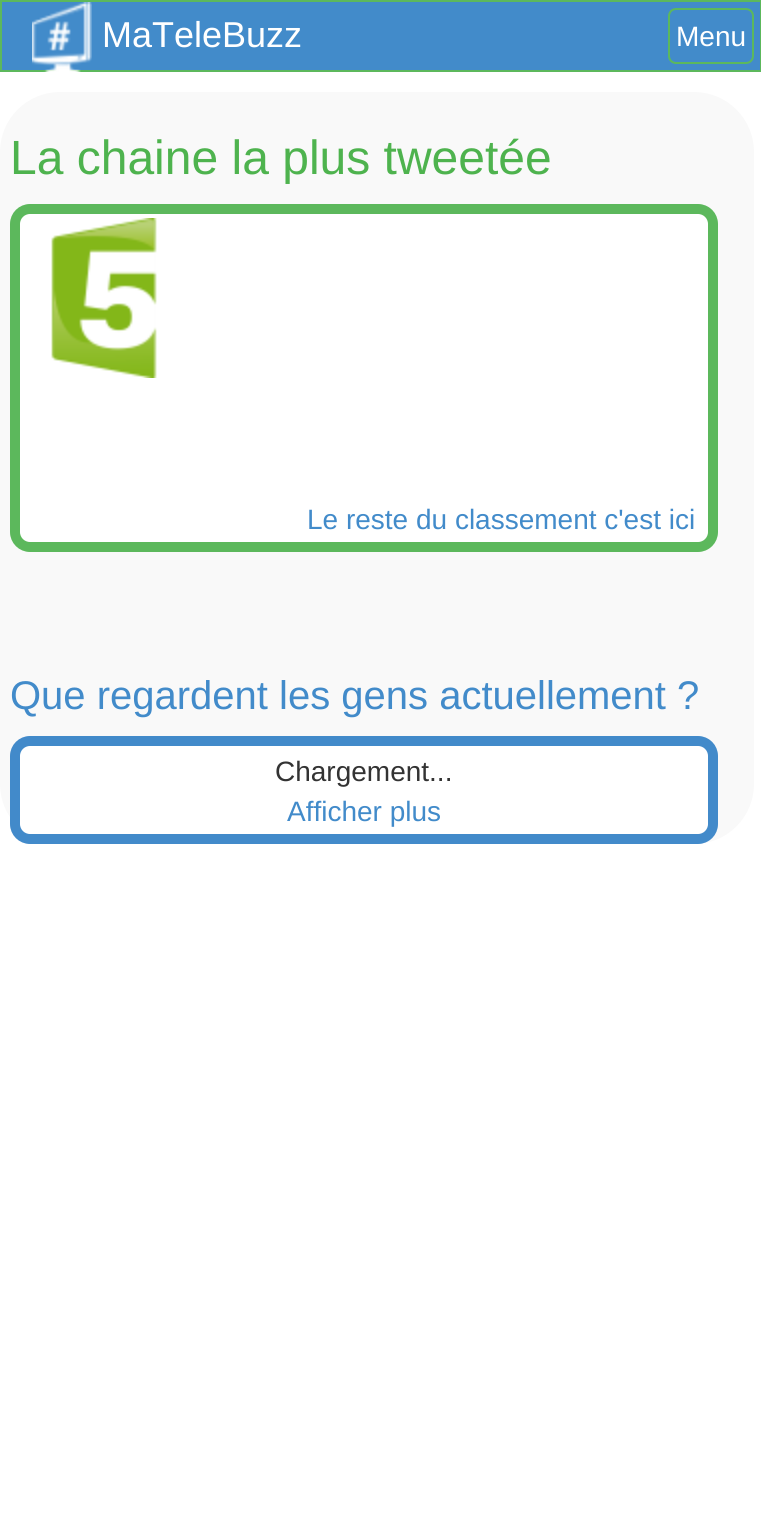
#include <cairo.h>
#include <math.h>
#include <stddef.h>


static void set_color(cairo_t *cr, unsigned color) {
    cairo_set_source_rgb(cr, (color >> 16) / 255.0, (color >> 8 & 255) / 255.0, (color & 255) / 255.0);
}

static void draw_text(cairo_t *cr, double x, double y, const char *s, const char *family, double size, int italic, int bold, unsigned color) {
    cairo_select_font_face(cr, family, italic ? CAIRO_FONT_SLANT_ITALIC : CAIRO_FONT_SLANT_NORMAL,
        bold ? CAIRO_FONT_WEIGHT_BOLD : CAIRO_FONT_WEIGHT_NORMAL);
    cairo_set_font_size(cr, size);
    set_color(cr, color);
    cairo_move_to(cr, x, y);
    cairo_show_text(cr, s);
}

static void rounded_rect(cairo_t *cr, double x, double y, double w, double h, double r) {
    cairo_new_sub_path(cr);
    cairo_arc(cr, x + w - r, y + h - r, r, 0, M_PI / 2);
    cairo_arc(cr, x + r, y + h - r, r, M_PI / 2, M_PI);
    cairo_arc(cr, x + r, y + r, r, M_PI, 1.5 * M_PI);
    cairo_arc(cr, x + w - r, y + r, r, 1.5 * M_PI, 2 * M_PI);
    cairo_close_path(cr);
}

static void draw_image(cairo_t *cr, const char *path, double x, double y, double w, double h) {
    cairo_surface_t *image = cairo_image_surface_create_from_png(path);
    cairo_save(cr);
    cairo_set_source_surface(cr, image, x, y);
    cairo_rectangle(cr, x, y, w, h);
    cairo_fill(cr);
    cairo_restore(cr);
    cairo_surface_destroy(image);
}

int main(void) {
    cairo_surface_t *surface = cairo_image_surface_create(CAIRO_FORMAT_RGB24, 761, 1538);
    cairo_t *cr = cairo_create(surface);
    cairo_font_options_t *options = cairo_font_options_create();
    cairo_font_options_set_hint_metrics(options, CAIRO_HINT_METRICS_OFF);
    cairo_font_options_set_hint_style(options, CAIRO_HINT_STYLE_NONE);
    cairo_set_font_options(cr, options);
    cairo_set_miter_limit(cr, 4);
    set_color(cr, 0xFFFFFF);
    cairo_paint(cr);
    set_color(cr, 0x428BCA);
    cairo_rectangle(cr, 1, 1, 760, 70);
    cairo_fill_preserve(cr);
    set_color(cr, 0x5CB85C);
    cairo_stroke(cr);
    draw_image(cr, "assets/img1.png", 32, 2, 60, 70);
    draw_text(cr, 102, 47, "MaTeleBuzz", "Liberation Sans", 36, 0, 0, 0xFFFFFF);
    rounded_rect(cr, 669, 9, 84, 54, 7);
    set_color(cr, 0x5CB85C);
    cairo_stroke(cr);
    draw_text(cr, 676, 46, "Menu", "Liberation Sans", 28, 0, 0, 0xFFFFFF);
    set_color(cr, 0xF9F9F9);
    rounded_rect(cr, 0, 92, 754, 752, 60);
    cairo_fill(cr);
    draw_text(cr, 10, 174, "La chaine la plus tweetée", "Liberation Sans", 48, 0, 0, 0x4EB34E);
    set_color(cr, 0xFFFFFF);
    rounded_rect(cr, 15, 209, 698, 338, 15);
    cairo_fill_preserve(cr);
    set_color(cr, 0x5CB85C);
    cairo_set_line_width(cr, 10);
    cairo_stroke(cr);
    draw_image(cr, "assets/img2.png", 51, 218, 106, 160);
    draw_text(cr, 307, 529, "Le reste du classement c'est ici", "Liberation Sans", 28, 0, 0, 0x428BCA);
    draw_text(cr, 10, 709, "Que regardent les gens actuellement ?", "Liberation Sans", 40, 0, 0, 0x428BCA);
    set_color(cr, 0xFFFFFF);
    rounded_rect(cr, 15, 741, 698, 98, 15);
    cairo_fill_preserve(cr);
    set_color(cr, 0x428ACA);
    cairo_stroke(cr);
    draw_text(cr, 275, 781, "Chargement...", "Liberation Sans", 28, 0, 0, 0x333333);
    draw_text(cr, 287, 821, "Afficher plus", "Liberation Sans", 28, 0, 0, 0x428BCA);
    cairo_surface_write_to_png(surface, "output.png");
    cairo_font_options_destroy(options);
    cairo_destroy(cr);
    cairo_surface_destroy(surface);
    return 0;
}
